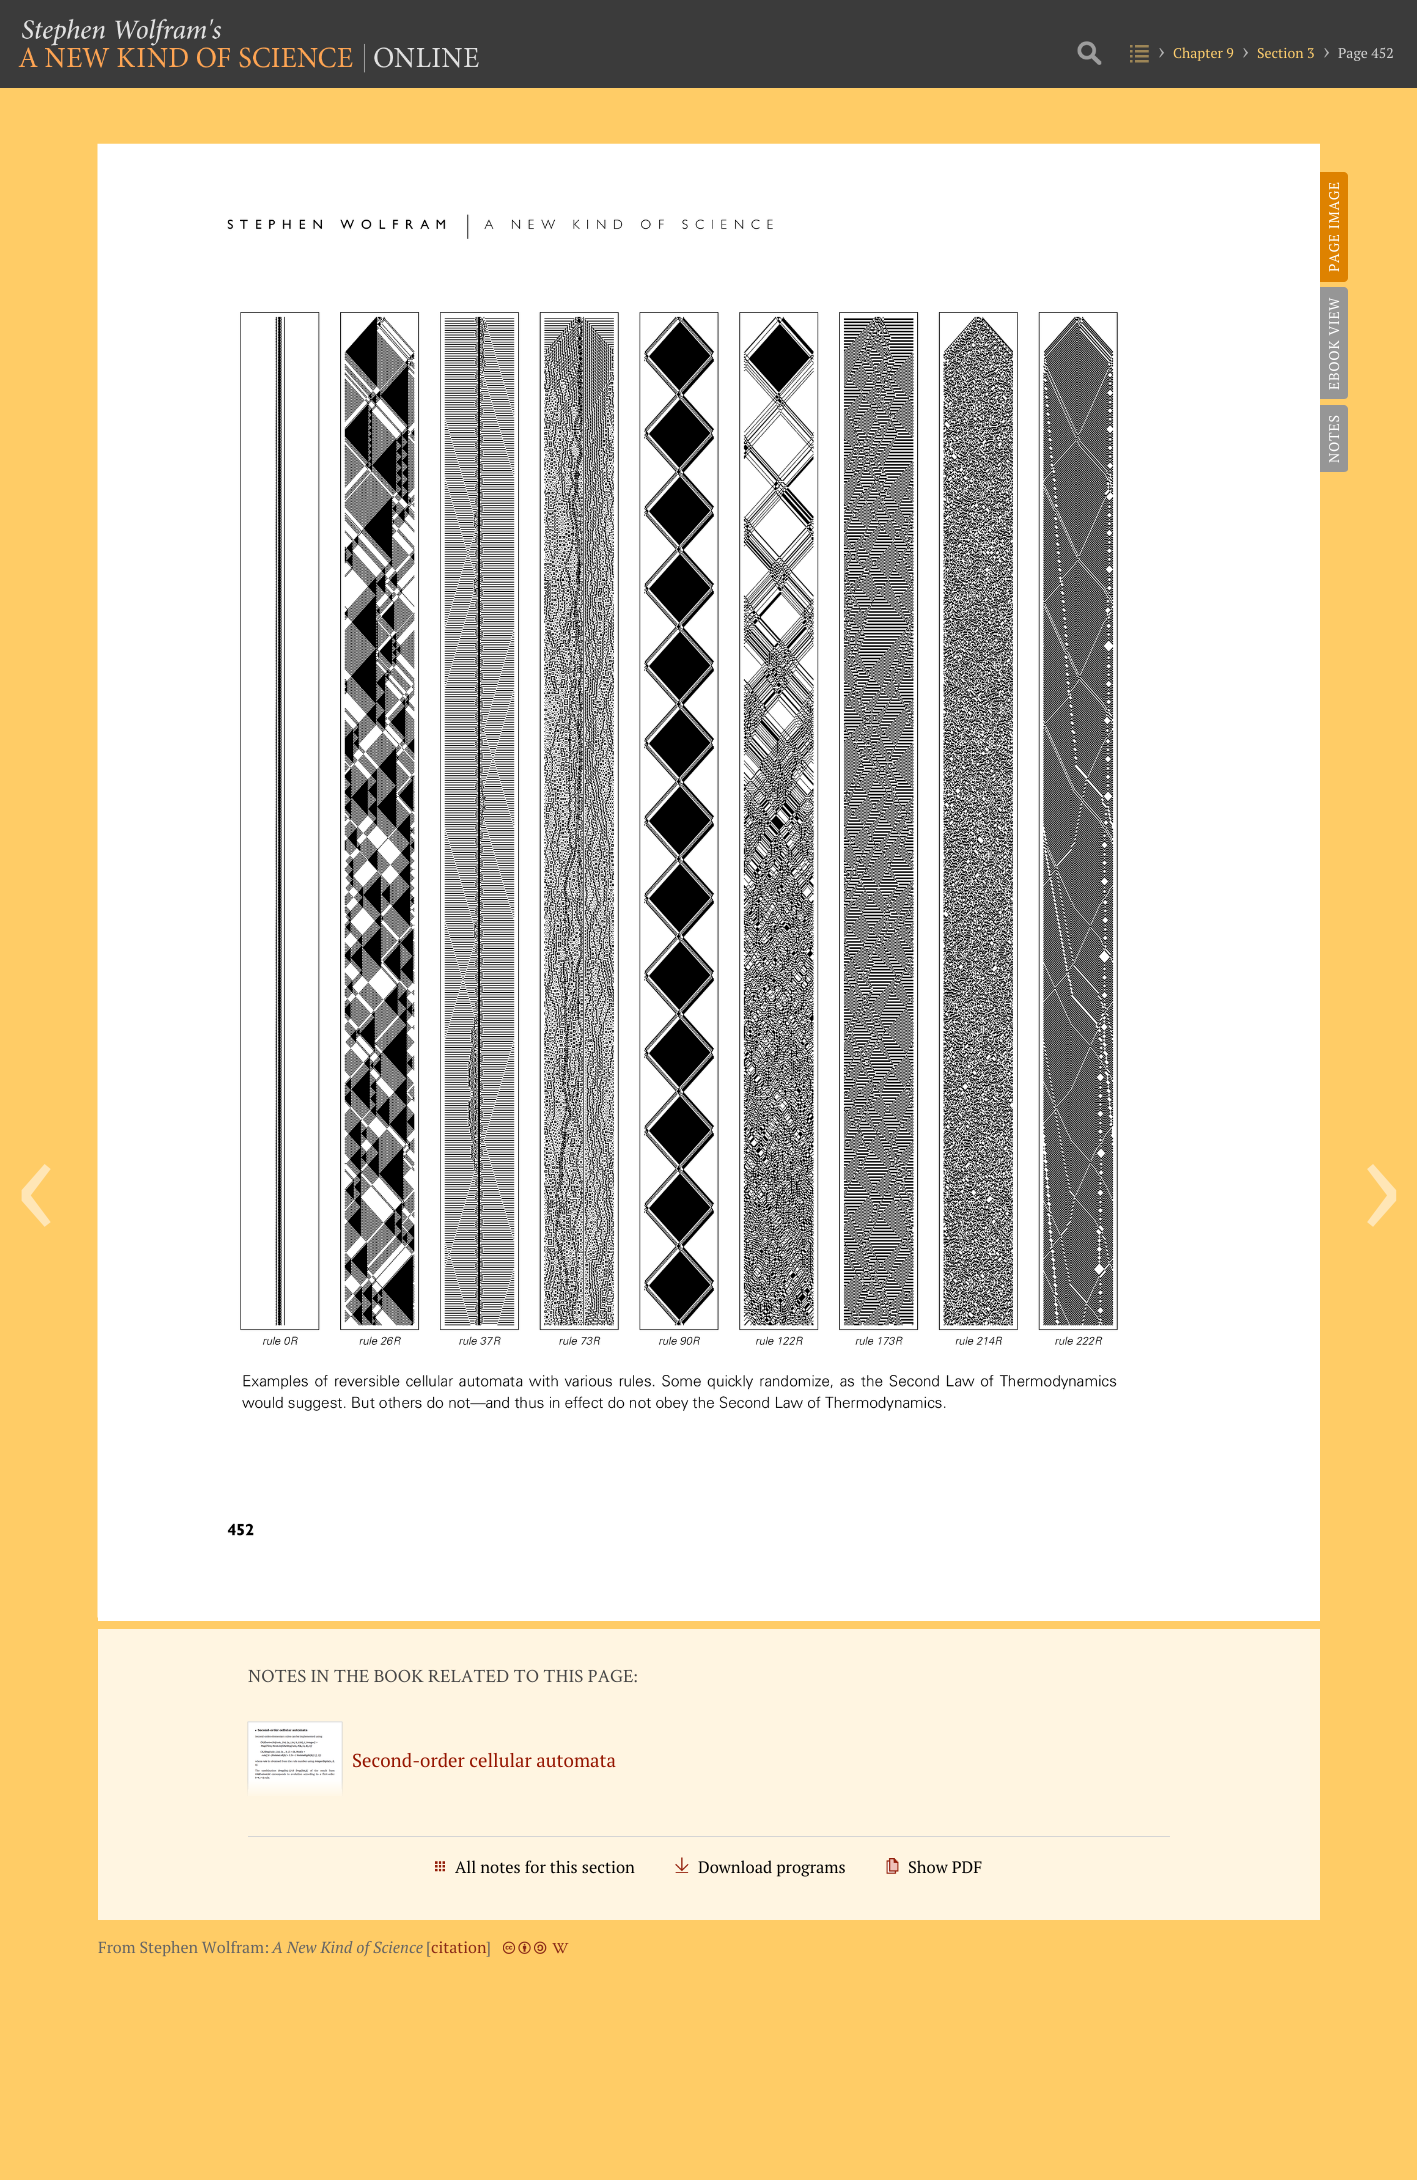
#include <cairo.h>
#include <math.h>
#include <stddef.h>


static void set_color(cairo_t *cr, unsigned color) {
    cairo_set_source_rgb(cr, (color >> 16) / 255.0, (color >> 8 & 255) / 255.0, (color & 255) / 255.0);
}

static void draw_text(cairo_t *cr, double x, double y, const char *s, const char *family, double size, int italic, int bold, unsigned color) {
    cairo_select_font_face(cr, family, italic ? CAIRO_FONT_SLANT_ITALIC : CAIRO_FONT_SLANT_NORMAL,
        bold ? CAIRO_FONT_WEIGHT_BOLD : CAIRO_FONT_WEIGHT_NORMAL);
    cairo_set_font_size(cr, size);
    set_color(cr, color);
    cairo_move_to(cr, x, y);
    cairo_show_text(cr, s);
}

static void draw_spaced(cairo_t *cr, double x, double y, const char *s, double letter, double word) {
    cairo_move_to(cr, x, y);
    while (*s) {
        char ch[5] = {0};
        int n = 0;
        do ch[n++] = *s++; while ((*s & 0xC0) == 0x80);
        cairo_show_text(cr, ch);
        cairo_rel_move_to(cr, letter + word * (*ch == ' '), 0);
    }
}

static void fill_rect(cairo_t *cr, double x, double y, double w, double h, unsigned color) {
    set_color(cr, color);
    cairo_rectangle(cr, x, y, w, h);
    cairo_fill(cr);
}

static void draw_image(cairo_t *cr, const char *path, double x, double y, double w, double h) {
    cairo_surface_t *image = cairo_image_surface_create_from_png(path);
    cairo_save(cr);
    cairo_set_source_surface(cr, image, x, y);
    cairo_rectangle(cr, x, y, w, h);
    cairo_fill(cr);
    cairo_restore(cr);
    cairo_surface_destroy(image);
}

int main(void) {
    cairo_surface_t *surface = cairo_image_surface_create(CAIRO_FORMAT_RGB24, 1417, 2180);
    cairo_t *cr = cairo_create(surface);
    cairo_font_options_t *options = cairo_font_options_create();
    cairo_font_options_set_hint_metrics(options, CAIRO_HINT_METRICS_OFF);
    cairo_font_options_set_hint_style(options, CAIRO_HINT_STYLE_NONE);
    cairo_set_font_options(cr, options);
    cairo_set_miter_limit(cr, 4);
    set_color(cr, 0xFFCC66);
    cairo_paint(cr);
    fill_rect(cr, 0, 0, 1417, 88, 0x3B3B3B);
    draw_image(cr, "assets/img1.png", 18, 18, 461, 55);
    draw_image(cr, "assets/img2.png", 1077, 41, 25, 24);
    draw_image(cr, "assets/img3.png", 1130, 45, 19, 18);
    draw_text(cr, 1158, 59, "›", "PT Serif", 24, 0, 0, 0xB3B3B3);
    draw_text(cr, 1173, 58, "Chapter 9", "PT Serif", 14, 0, 0, 0xFFCF6E);
    draw_text(cr, 1242, 59, "›", "PT Serif", 24, 0, 0, 0xB3B3B3);
    draw_text(cr, 1257, 58, "Section 3", "PT Serif", 14, 0, 0, 0xFFCF6E);
    draw_text(cr, 1323, 59, "›", "PT Serif", 24, 0, 0, 0xB3B3B3);
    draw_text(cr, 1338, 58, "Page 452", "PT Serif", 14, 0, 0, 0xD4D4D4);
    fill_rect(cr, 98, 1617, 1222, 4, 0xFFFFFF);
    draw_image(cr, "assets/img4.png", 97, 143, 1223, 1475);
    set_color(cr, 0xDE8200);
    cairo_new_path(cr);
    cairo_move_to(cr, 1320, 282);
    cairo_line_to(cr, 1320, 172);
    cairo_line_to(cr, 1344, 172);
    cairo_curve_to(cr, 1346, 172, 1348, 174, 1348, 176);
    cairo_line_to(cr, 1348, 278);
    cairo_curve_to(cr, 1348, 280, 1346, 282, 1344, 282);
    cairo_close_path(cr);
    cairo_fill(cr);
    set_color(cr, 0xFFFFFF);
    cairo_save(cr);
    cairo_translate(cr, 1339, 272);
    cairo_rotate(cr, -90 * M_PI / 180);
    draw_spaced(cr, 0, 0, "PAGE IMAGE", 0.75, 0);
    cairo_restore(cr);
    set_color(cr, 0x969696);
    cairo_new_path(cr);
    cairo_move_to(cr, 1320, 399);
    cairo_line_to(cr, 1320, 287);
    cairo_line_to(cr, 1344, 287);
    cairo_curve_to(cr, 1346, 287, 1348, 289, 1348, 291);
    cairo_line_to(cr, 1348, 395);
    cairo_curve_to(cr, 1348, 398, 1346, 399, 1344, 399);
    cairo_close_path(cr);
    cairo_fill(cr);
    set_color(cr, 0xFFFFFF);
    cairo_save(cr);
    cairo_translate(cr, 1339, 390);
    cairo_rotate(cr, -90 * M_PI / 180);
    draw_spaced(cr, 0, 0, "EBOOK VIEW", 0.75, 0);
    cairo_restore(cr);
    set_color(cr, 0x969696);
    cairo_new_path(cr);
    cairo_move_to(cr, 1320, 472);
    cairo_line_to(cr, 1320, 405);
    cairo_line_to(cr, 1344, 405);
    cairo_curve_to(cr, 1346, 405, 1348, 407, 1348, 409);
    cairo_line_to(cr, 1348, 469);
    cairo_curve_to(cr, 1348, 471, 1346, 472, 1344, 472);
    cairo_close_path(cr);
    cairo_fill(cr);
    set_color(cr, 0xFFFFFF);
    cairo_save(cr);
    cairo_translate(cr, 1339, 463);
    cairo_rotate(cr, -90 * M_PI / 180);
    draw_spaced(cr, 0, 0, "NOTES", 0.75, 0);
    cairo_restore(cr);
    fill_rect(cr, 98, 1629, 1222, 291, 0xFFF5E1);
    draw_text(cr, 248, 1682, "NOTES IN THE BOOK RELATED TO THIS PAGE:", "Crimson Text", 18.75, 0, 0, 0x454545);
    draw_image(cr, "assets/img5.png", 247, 1721, 96, 75);
    draw_text(cr, 352, 1767, "Second-order cellular automata", "PT Serif", 18.75, 0, 0, 0x951500);
    fill_rect(cr, 248, 1836, 922, 1, 0xD5D5D5);
    draw_image(cr, "assets/img6.png", 435, 1861, 10, 11);
    draw_text(cr, 455, 1873, "All notes for this section", "PT Serif", 16.5, 0, 0, 0x020202);
    draw_image(cr, "assets/img7.png", 675, 1857, 14, 16);
    draw_text(cr, 698, 1873, "Download programs", "PT Serif", 16.5, 0, 0, 0x020202);
    draw_image(cr, "assets/img8.png", 886, 1858, 13, 16);
    draw_text(cr, 908, 1873, "Show PDF", "PT Serif", 16.5, 0, 0, 0x020202);
    draw_text(cr, 14, 1238, "‹", "Source Sans Pro", 169, 0, 0, 0xFFE6B6);
    draw_text(cr, 1358, 1238, "›", "Source Sans Pro", 169, 0, 0, 0xFFE6B6);
    draw_text(cr, 98, 1953, "From Stephen Wolfram:", "PT Serif", 16, 0, 0, 0x646464);
    draw_text(cr, 272, 1953, "A New Kind of Science", "PT Serif", 16, 1, 0, 0x646464);
    draw_text(cr, 426, 1953, "[", "PT Serif", 16, 0, 0, 0x646464);
    draw_text(cr, 431, 1953, "citation", "PT Serif", 16, 0, 0, 0x892917);
    draw_text(cr, 486, 1953, "]", "PT Serif", 16, 0, 0, 0x646464);
    draw_image(cr, "assets/img9.png", 503, 1941, 44, 13);
    draw_image(cr, "assets/img10.png", 552, 1943, 17, 11);
    cairo_surface_write_to_png(surface, "output.png");
    cairo_font_options_destroy(options);
    cairo_destroy(cr);
    cairo_surface_destroy(surface);
    return 0;
}
